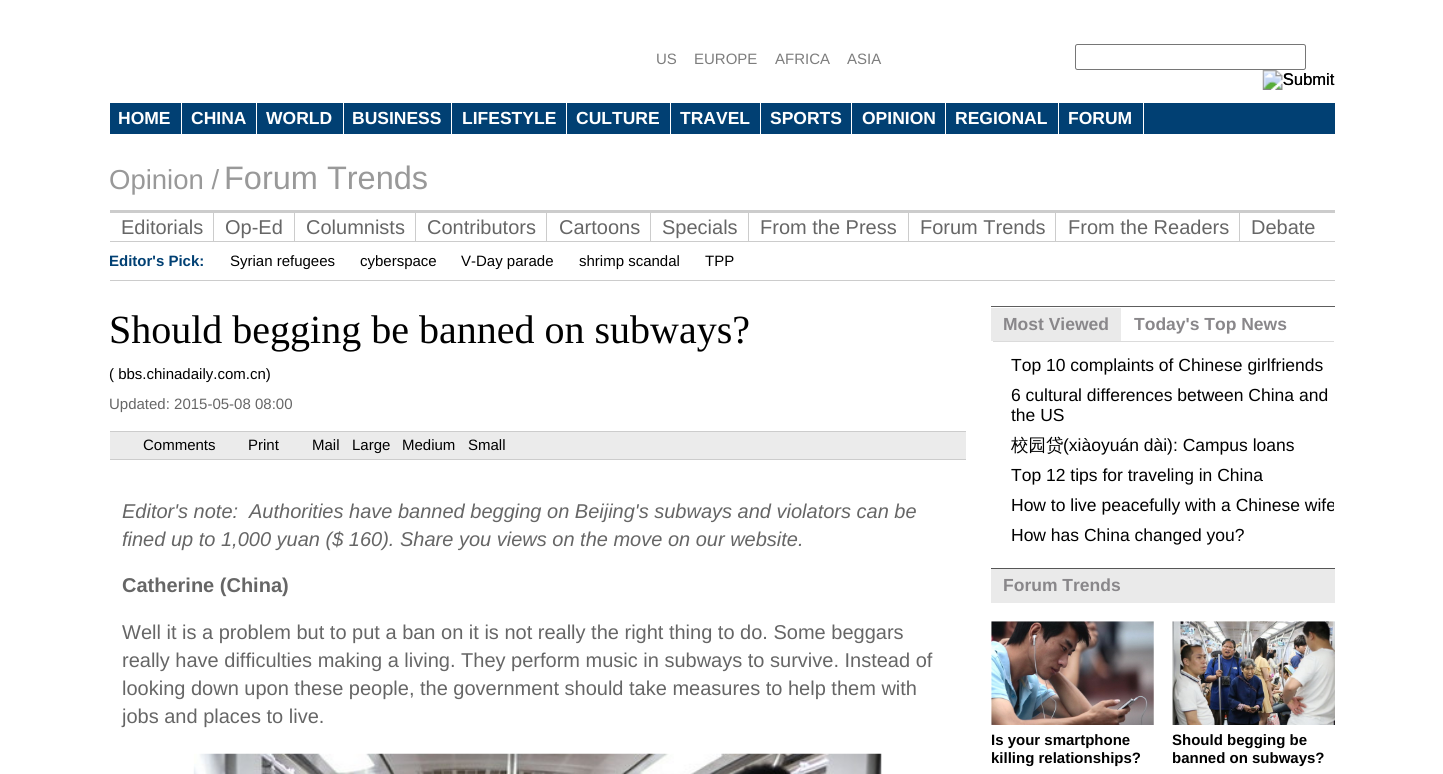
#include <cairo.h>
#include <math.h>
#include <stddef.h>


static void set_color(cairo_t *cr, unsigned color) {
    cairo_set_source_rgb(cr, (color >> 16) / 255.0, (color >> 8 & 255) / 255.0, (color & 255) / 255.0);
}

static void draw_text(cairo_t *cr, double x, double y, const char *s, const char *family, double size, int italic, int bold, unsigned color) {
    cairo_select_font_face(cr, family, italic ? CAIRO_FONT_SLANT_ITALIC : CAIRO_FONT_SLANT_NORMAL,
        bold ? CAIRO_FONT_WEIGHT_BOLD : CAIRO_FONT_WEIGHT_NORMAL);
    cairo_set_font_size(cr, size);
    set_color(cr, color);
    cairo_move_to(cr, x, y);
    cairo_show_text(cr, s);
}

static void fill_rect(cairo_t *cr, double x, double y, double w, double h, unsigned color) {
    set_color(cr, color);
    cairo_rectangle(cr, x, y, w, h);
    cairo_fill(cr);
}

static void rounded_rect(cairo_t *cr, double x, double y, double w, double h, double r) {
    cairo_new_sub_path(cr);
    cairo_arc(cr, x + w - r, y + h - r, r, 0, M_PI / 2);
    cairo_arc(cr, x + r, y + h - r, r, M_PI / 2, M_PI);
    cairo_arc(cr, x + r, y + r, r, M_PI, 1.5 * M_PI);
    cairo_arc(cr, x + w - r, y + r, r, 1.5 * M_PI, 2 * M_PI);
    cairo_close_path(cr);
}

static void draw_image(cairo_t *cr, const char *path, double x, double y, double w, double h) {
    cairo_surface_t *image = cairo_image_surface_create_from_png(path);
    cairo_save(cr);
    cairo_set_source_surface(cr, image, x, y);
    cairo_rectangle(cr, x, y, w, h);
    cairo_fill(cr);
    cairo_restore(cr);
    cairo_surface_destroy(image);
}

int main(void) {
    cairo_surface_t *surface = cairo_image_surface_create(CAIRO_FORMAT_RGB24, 1443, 774);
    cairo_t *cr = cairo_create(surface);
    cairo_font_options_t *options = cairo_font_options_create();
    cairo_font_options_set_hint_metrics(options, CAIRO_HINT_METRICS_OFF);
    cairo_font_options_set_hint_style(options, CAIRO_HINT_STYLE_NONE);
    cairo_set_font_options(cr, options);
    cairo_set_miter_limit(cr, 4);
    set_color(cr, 0xFFFFFF);
    cairo_paint(cr);
    draw_text(cr, 656, 64, "US", "Liberation Sans", 15, 0, 0, 0x7D7D7D);
    draw_text(cr, 694, 64, "EUROPE", "Liberation Sans", 15, 0, 0, 0x7D7D7D);
    draw_text(cr, 775, 64, "AFRICA", "Liberation Sans", 15, 0, 0, 0x7D7D7D);
    draw_text(cr, 847, 64, "ASIA", "Liberation Sans", 15, 0, 0, 0x7D7D7D);
    rounded_rect(cr, 1075.5, 44.5, 230, 25, 2);
    set_color(cr, 0x767676);
    cairo_set_line_width(cr, 1);
    cairo_stroke(cr);
    draw_image(cr, "assets/img1.png", 1262, 70, 73, 20);
    draw_text(cr, 1283, 85, "Submit", "Liberation Sans", 16.5, 0, 0, 0x000000);
    fill_rect(cr, 110, 103, 1225, 31, 0x014073);
    fill_rect(cr, 181, 103, 1, 31, 0xFFFFFF);
    draw_text(cr, 118, 124, "HOME", "Liberation Sans", 17.5, 0, 1, 0xFFFFFF);
    fill_rect(cr, 256, 103, 1, 31, 0xFFFFFF);
    draw_text(cr, 191, 124, "CHINA", "Liberation Sans", 17.5, 0, 1, 0xFFFFFF);
    fill_rect(cr, 343, 103, 1, 31, 0xFFFFFF);
    draw_text(cr, 266, 124, "WORLD", "Liberation Sans", 17.5, 0, 1, 0xFFFFFF);
    fill_rect(cr, 451, 103, 1, 31, 0xFFFFFF);
    draw_text(cr, 352, 124, "BUSINESS", "Liberation Sans", 17.5, 0, 1, 0xFFFFFF);
    fill_rect(cr, 566, 103, 1, 31, 0xFFFFFF);
    draw_text(cr, 462, 124, "LIFESTYLE", "Liberation Sans", 17.5, 0, 1, 0xFFFFFF);
    fill_rect(cr, 670, 103, 1, 31, 0xFFFFFF);
    draw_text(cr, 576, 124, "CULTURE", "Liberation Sans", 17.5, 0, 1, 0xFFFFFF);
    fill_rect(cr, 760, 103, 1, 31, 0xFFFFFF);
    draw_text(cr, 680, 124, "TRAVEL", "Liberation Sans", 17.5, 0, 1, 0xFFFFFF);
    fill_rect(cr, 851, 103, 1, 31, 0xFFFFFF);
    draw_text(cr, 770, 124, "SPORTS", "Liberation Sans", 17.5, 0, 1, 0xFFFFFF);
    fill_rect(cr, 945, 103, 1, 31, 0xFFFFFF);
    draw_text(cr, 862, 124, "OPINION", "Liberation Sans", 17.5, 0, 1, 0xFFFFFF);
    fill_rect(cr, 1058, 103, 1, 31, 0xFFFFFF);
    draw_text(cr, 955, 124, "REGIONAL", "Liberation Sans", 17.5, 0, 1, 0xFFFFFF);
    fill_rect(cr, 1143, 103, 1, 31, 0xFFFFFF);
    draw_text(cr, 1068, 124, "FORUM", "Liberation Sans", 17.5, 0, 1, 0xFFFFFF);
    draw_text(cr, 109, 189, "Opinion /", "Liberation Sans", 27.5, 0, 0, 0x999999);
    draw_text(cr, 224, 189, "Forum Trends", "Liberation Sans", 32.5, 0, 0, 0x999999);
    fill_rect(cr, 110, 210, 1225, 3, 0xCCCCCC);
    fill_rect(cr, 110, 241, 1225, 1, 0xCCCCCC);
    fill_rect(cr, 213, 213, 1, 28, 0xCCCCCC);
    draw_text(cr, 121, 234, "Editorials", "Liberation Sans", 20, 0, 0, 0x666666);
    fill_rect(cr, 294, 213, 1, 28, 0xCCCCCC);
    draw_text(cr, 225, 234, "Op-Ed", "Liberation Sans", 20, 0, 0, 0x666666);
    fill_rect(cr, 415, 213, 1, 28, 0xCCCCCC);
    draw_text(cr, 306, 234, "Columnists", "Liberation Sans", 20, 0, 0, 0x666666);
    fill_rect(cr, 546, 213, 1, 28, 0xCCCCCC);
    draw_text(cr, 427, 234, "Contributors", "Liberation Sans", 20, 0, 0, 0x666666);
    fill_rect(cr, 650, 213, 1, 28, 0xCCCCCC);
    draw_text(cr, 559, 234, "Cartoons", "Liberation Sans", 20, 0, 0, 0x666666);
    fill_rect(cr, 748, 213, 1, 28, 0xCCCCCC);
    draw_text(cr, 662, 234, "Specials", "Liberation Sans", 20, 0, 0, 0x666666);
    fill_rect(cr, 908, 213, 1, 28, 0xCCCCCC);
    draw_text(cr, 760, 234, "From the Press", "Liberation Sans", 20, 0, 0, 0x666666);
    fill_rect(cr, 1055, 213, 1, 28, 0xCCCCCC);
    draw_text(cr, 920, 234, "Forum Trends", "Liberation Sans", 20, 0, 0, 0x666666);
    fill_rect(cr, 1239, 213, 1, 28, 0xCCCCCC);
    draw_text(cr, 1068, 234, "From the Readers", "Liberation Sans", 20, 0, 0, 0x666666);
    draw_text(cr, 1251, 234, "Debate", "Liberation Sans", 20, 0, 0, 0x666666);
    fill_rect(cr, 110, 280, 1225, 1, 0xCCCCCC);
    draw_text(cr, 109, 266, "Editor's Pick:", "Liberation Sans", 15, 0, 1, 0x014073);
    draw_text(cr, 230, 266, "Syrian refugees", "Liberation Sans", 15, 0, 0, 0x000000);
    draw_text(cr, 360, 266, "cyberspace", "Liberation Sans", 15, 0, 0, 0x000000);
    draw_text(cr, 461, 266, "V-Day parade", "Liberation Sans", 15, 0, 0, 0x000000);
    draw_text(cr, 579, 266, "shrimp scandal", "Liberation Sans", 15, 0, 0, 0x000000);
    draw_text(cr, 705, 266, "TPP", "Liberation Sans", 15, 0, 0, 0x000000);
    draw_text(cr, 109, 343, "Should begging be banned on subways?", "Liberation Serif", 40, 0, 0, 0x000000);
    draw_text(cr, 109, 379, "( bbs.chinadaily.com.cn)", "Liberation Sans", 15, 0, 0, 0x000000);
    draw_text(cr, 109, 409, "Updated: 2015-05-08 08:00", "Liberation Sans", 15, 0, 0, 0x666666);
    fill_rect(cr, 110, 432, 856, 27, 0xEBEBEB);
    fill_rect(cr, 110, 431, 856, 1, 0xCCCCCC);
    fill_rect(cr, 110, 459, 856, 1, 0xCCCCCC);
    draw_text(cr, 143, 450, "Comments", "Liberation Sans", 15, 0, 0, 0x000000);
    draw_text(cr, 248, 450, "Print", "Liberation Sans", 15, 0, 0, 0x000000);
    draw_text(cr, 312, 450, "Mail", "Liberation Sans", 15, 0, 0, 0x000000);
    draw_text(cr, 352, 450, "Large", "Liberation Sans", 15, 0, 0, 0x000000);
    draw_text(cr, 402, 450, "Medium", "Liberation Sans", 15, 0, 0, 0x000000);
    draw_text(cr, 468, 450, "Small", "Liberation Sans", 15, 0, 0, 0x000000);
    draw_text(cr, 122, 518, "Editor's note:", "Liberation Sans", 20, 1, 0, 0x666666);
    draw_text(cr, 249, 518, "Authorities have banned begging on Beijing's subways and violators can be", "Liberation Sans", 20, 1, 0, 0x666666);
    draw_text(cr, 122, 546, "fined up to 1,000 yuan ($ 160). Share you views on the move on our website.", "Liberation Sans", 20, 1, 0, 0x666666);
    draw_text(cr, 122, 592, "Catherine (China)", "Liberation Sans", 20, 0, 1, 0x666666);
    draw_text(cr, 122, 639, "Well it is a problem but to put a ban on it is not really the right thing to do. Some beggars", "Liberation Sans", 20, 0, 0, 0x666666);
    draw_text(cr, 122, 667, "really have difficulties making a living. They perform music in subways to survive. Instead of", "Liberation Sans", 20, 0, 0, 0x666666);
    draw_text(cr, 122, 695, "looking down upon these people, the government should take measures to help them with", "Liberation Sans", 20, 0, 0, 0x666666);
    draw_text(cr, 122, 723, "jobs and places to live.", "Liberation Sans", 20, 0, 0, 0x666666);
    draw_image(cr, "assets/img2.png", 193, 753, 689, 21);
    fill_rect(cr, 991, 306, 344, 1, 0x5D5D5D);
    fill_rect(cr, 991, 308, 130, 33, 0xEAEAEA);
    draw_text(cr, 1003, 330, "Most Viewed", "Liberation Sans", 17.5, 0, 1, 0x89878A);
    draw_text(cr, 1134, 330, "Today's Top News", "Liberation Sans", 17.5, 0, 1, 0x89878A);
    fill_rect(cr, 993, 341, 341, 1, 0xDBDBDB);
    draw_text(cr, 1011, 371, "Top 10 complaints of Chinese girlfriends", "Liberation Sans", 17.5, 0, 0, 0x000000);
    draw_text(cr, 1011, 401, "6 cultural differences between China and", "Liberation Sans", 17.5, 0, 0, 0x000000);
    draw_text(cr, 1011, 421, "the US", "Liberation Sans", 17.5, 0, 0, 0x000000);
    draw_text(cr, 1011, 451, "校园贷", "WenQuanYi Zen Hei Medium", 17.5, 0, 0, 0x000000);
    draw_text(cr, 1063, 451, "(xiàoyuán dài): Campus loans", "Liberation Sans", 17.5, 0, 0, 0x000000);
    draw_text(cr, 1011, 481, "Top 12 tips for traveling in China", "Liberation Sans", 17.5, 0, 0, 0x000000);
    cairo_save(cr);
    cairo_rectangle(cr, 993, 343, 341, 225);
    cairo_clip(cr);
    draw_text(cr, 1011, 511, "How to live peacefully with a Chinese wife", "Liberation Sans", 17.5, 0, 0, 0x000000);
    cairo_restore(cr);
    draw_text(cr, 1011, 541, "How has China changed you?", "Liberation Sans", 17.5, 0, 0, 0x000000);
    fill_rect(cr, 991, 569, 344, 34, 0xEAEAEA);
    fill_rect(cr, 991, 568, 344, 1, 0x565656);
    draw_text(cr, 1003, 591, "Forum Trends", "Liberation Sans", 17.5, 0, 1, 0x89878A);
    draw_image(cr, "assets/img3.png", 991, 621, 163, 104);
    draw_text(cr, 991, 745, "Is your smartphone", "Liberation Sans", 15, 0, 1, 0x000000);
    draw_text(cr, 991, 763, "killing relationships?", "Liberation Sans", 15, 0, 1, 0x000000);
    draw_image(cr, "assets/img4.png", 1172, 621, 163, 104);
    draw_text(cr, 1172, 745, "Should begging be", "Liberation Sans", 15, 0, 1, 0x000000);
    draw_text(cr, 1172, 763, "banned on subways?", "Liberation Sans", 15, 0, 1, 0x000000);
    cairo_surface_write_to_png(surface, "output.png");
    cairo_font_options_destroy(options);
    cairo_destroy(cr);
    cairo_surface_destroy(surface);
    return 0;
}
